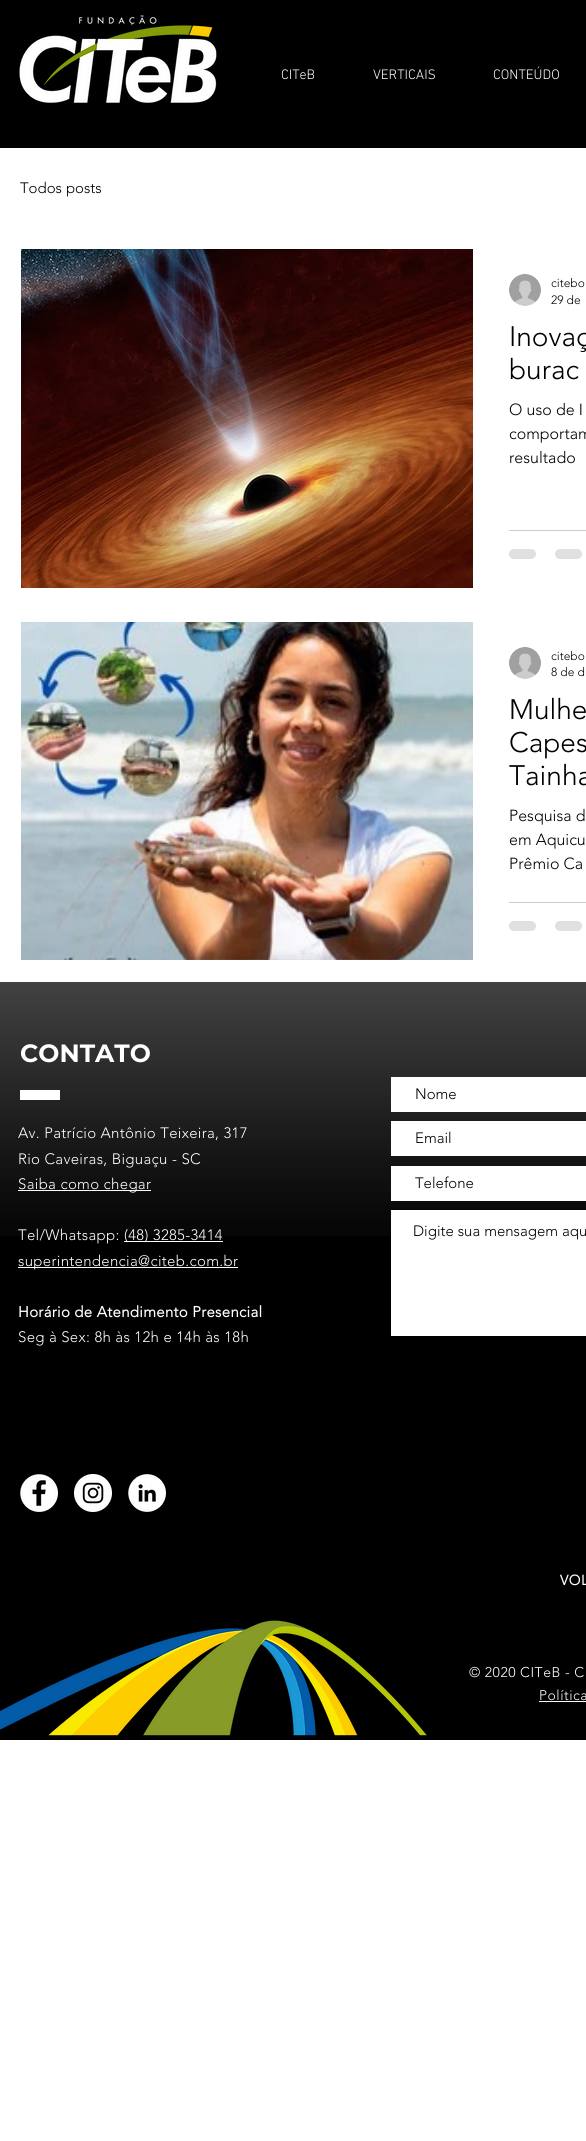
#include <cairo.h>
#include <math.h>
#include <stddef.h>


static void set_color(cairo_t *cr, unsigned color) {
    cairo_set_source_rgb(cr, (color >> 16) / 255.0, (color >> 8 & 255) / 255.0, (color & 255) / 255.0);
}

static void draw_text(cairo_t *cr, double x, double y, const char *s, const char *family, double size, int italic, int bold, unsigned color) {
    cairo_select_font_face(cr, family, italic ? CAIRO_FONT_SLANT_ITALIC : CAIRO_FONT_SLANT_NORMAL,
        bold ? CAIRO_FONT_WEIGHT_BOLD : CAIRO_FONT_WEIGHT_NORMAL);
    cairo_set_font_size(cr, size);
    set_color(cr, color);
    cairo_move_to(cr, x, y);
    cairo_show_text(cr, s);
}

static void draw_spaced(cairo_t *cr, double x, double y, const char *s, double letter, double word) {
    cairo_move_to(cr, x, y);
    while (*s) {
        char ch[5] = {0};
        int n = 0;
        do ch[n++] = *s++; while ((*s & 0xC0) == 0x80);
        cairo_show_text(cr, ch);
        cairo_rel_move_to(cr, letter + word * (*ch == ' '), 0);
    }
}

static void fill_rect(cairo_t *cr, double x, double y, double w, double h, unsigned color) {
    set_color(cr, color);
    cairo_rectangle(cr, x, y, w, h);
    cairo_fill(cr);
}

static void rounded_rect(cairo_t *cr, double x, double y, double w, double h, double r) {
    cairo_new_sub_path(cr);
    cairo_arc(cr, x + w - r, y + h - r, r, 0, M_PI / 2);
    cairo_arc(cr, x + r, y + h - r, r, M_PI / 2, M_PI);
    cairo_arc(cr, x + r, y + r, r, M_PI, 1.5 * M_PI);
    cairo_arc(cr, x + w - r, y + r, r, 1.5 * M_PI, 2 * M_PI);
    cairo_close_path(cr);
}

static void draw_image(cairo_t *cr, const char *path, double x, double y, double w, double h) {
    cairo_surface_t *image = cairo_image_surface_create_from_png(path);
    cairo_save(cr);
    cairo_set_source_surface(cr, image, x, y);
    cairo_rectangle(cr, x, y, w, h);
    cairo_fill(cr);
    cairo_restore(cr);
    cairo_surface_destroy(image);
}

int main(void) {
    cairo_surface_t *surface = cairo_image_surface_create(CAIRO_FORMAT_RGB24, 586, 2141);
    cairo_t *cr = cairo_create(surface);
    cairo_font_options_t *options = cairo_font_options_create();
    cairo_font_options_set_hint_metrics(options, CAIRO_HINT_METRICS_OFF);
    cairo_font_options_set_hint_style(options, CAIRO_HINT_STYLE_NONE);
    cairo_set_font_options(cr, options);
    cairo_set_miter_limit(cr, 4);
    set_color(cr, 0xFFFFFF);
    cairo_paint(cr);
    fill_rect(cr, 0, 0, 586, 148, 0x000000);
    draw_image(cr, "assets/img1.png", 19, 15, 198, 88);
    draw_text(cr, 281, 79, "CITeB", "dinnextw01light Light", 14, 0, 0, 0xFFFFFF);
    draw_text(cr, 373, 79, "VERTICAIS", "dinnextw01light Light", 14, 0, 0, 0xFFFFFF);
    draw_text(cr, 493, 79, "CONTEÚDO", "dinnextw01light Light", 14, 0, 0, 0xFFFFFF);
    draw_text(cr, 20, 193, "Todos posts", "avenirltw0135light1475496 Light", 15, 0, 0, 0x000000);
    draw_image(cr, "assets/img2.png", 21, 249, 452, 339);
    draw_image(cr, "assets/img3.png", 509, 274, 32, 32);
    draw_text(cr, 551, 287, "citebo", "avenirltw0135light1475496 Light", 12, 0, 0, 0x000000);
    draw_text(cr, 551, 304, "29 de", "avenirltw0135light1475496 Light", 12, 0, 0, 0x000000);
    draw_text(cr, 509, 346, "Inovaç", "avenirltw0135light1475496 Light", 28, 0, 0, 0x000000);
    draw_text(cr, 509, 379, "burac", "avenirltw0135light1475496 Light", 28, 0, 0, 0x000000);
    draw_text(cr, 509, 415, "O uso de I", "avenirltw0135light1475496 Light", 16, 0, 0, 0x000000);
    draw_text(cr, 509, 439, "comportam", "avenirltw0135light1475496 Light", 16, 0, 0, 0x000000);
    draw_text(cr, 509, 463, "resultado", "avenirltw0135light1475496 Light", 16, 0, 0, 0x000000);
    fill_rect(cr, 509, 530, 77, 1, 0xCCCCCC);
    set_color(cr, 0xE0E0E0);
    rounded_rect(cr, 509, 549, 27, 10, 5);
    cairo_fill(cr);
    rounded_rect(cr, 555, 549, 27, 10, 5);
    cairo_fill(cr);
    draw_image(cr, "assets/img5.png", 21, 959, 452, 1);
    draw_image(cr, "assets/img4.png", 21, 622, 452, 338);
    draw_image(cr, "assets/img3.png", 509, 647, 32, 32);
    draw_text(cr, 551, 660, "citebo", "avenirltw0135light1475496 Light", 12, 0, 0, 0x000000);
    draw_text(cr, 551, 676, "8 de d", "avenirltw0135light1475496 Light", 12, 0, 0, 0x000000);
    draw_text(cr, 509, 719, "Mulhe", "avenirltw0135light1475496 Light", 28, 0, 0, 0x000000);
    draw_text(cr, 509, 752, "Capes", "avenirltw0135light1475496 Light", 28, 0, 0, 0x000000);
    draw_text(cr, 509, 785, "Tainha", "avenirltw0135light1475496 Light", 28, 0, 0, 0x000000);
    draw_text(cr, 509, 821, "Pesquisa d", "avenirltw0135light1475496 Light", 16, 0, 0, 0x000000);
    draw_text(cr, 509, 845, "em Aquicu", "avenirltw0135light1475496 Light", 16, 0, 0, 0x000000);
    draw_text(cr, 509, 869, "Prêmio Ca", "avenirltw0135light1475496 Light", 16, 0, 0, 0x000000);
    fill_rect(cr, 509, 902, 77, 1, 0xCCCCCC);
    set_color(cr, 0xE0E0E0);
    rounded_rect(cr, 509, 921, 27, 10, 5);
    cairo_fill(cr);
    rounded_rect(cr, 555, 921, 27, 10, 5);
    cairo_fill(cr);
    fill_rect(cr, 0, 982, 586, 758, 0x000000);
    draw_image(cr, "assets/img6.png", 0, 982, 586, 254);
    draw_text(cr, 20, 1062, "CONTATO", "Montserrat", 25, 0, 1, 0xFFFFFF);
    fill_rect(cr, 20, 1090, 40, 10, 0xFFFFFF);
    fill_rect(cr, 391, 1077, 195, 35, 0xFFFFFF);
    draw_text(cr, 415, 1099, "Nome", "avenirltw0135light1475496 Light", 15, 0, 0, 0x000000);
    fill_rect(cr, 391, 1121, 195, 35, 0xFFFFFF);
    draw_text(cr, 415, 1143, "Email", "avenirltw0135light1475496 Light", 15, 0, 0, 0x000000);
    fill_rect(cr, 391, 1166, 195, 35, 0xFFFFFF);
    draw_text(cr, 415, 1188, "Telefone", "avenirltw0135light1475496 Light", 15, 0, 0, 0x000000);
    fill_rect(cr, 391, 1210, 195, 126, 0xFFFFFF);
    draw_text(cr, 413, 1236, "Digite sua mensagem aqu", "avenirltw0135light1475496 Light", 15, 0, 0, 0x000000);
    set_color(cr, 0xFFFFFF);
    draw_spaced(cr, 18, 1138, "Av. Patrício Antônio Teixeira, 317", 0.3, 0);
    draw_spaced(cr, 18, 1164, "Rio Caveiras, Biguaçu - SC", 0.3, 0);
    fill_rect(cr, 18, 1190, 133, 1, 0xFFFFFF);
    draw_spaced(cr, 18, 1189, "Saiba como chegar", 0.3, 0);
    draw_spaced(cr, 18, 1240, "Tel/Whatsapp:", 0.3, 0);
    fill_rect(cr, 124, 1241, 99, 1, 0xFFFFFF);
    draw_spaced(cr, 124, 1240, "(48) 3285-3414", 0.3, 0);
    fill_rect(cr, 18, 1267, 220, 1, 0xFFFFFF);
    draw_spaced(cr, 18, 1266, "superintendencia@citeb.com.br", 0.3, 0);
    cairo_select_font_face(cr, "avenirltw0135light1475496", CAIRO_FONT_SLANT_NORMAL, CAIRO_FONT_WEIGHT_BOLD);
    draw_spaced(cr, 18, 1317, "Horário de Atendimento Presencial", 0.3, 0);
    cairo_select_font_face(cr, "avenirltw0135light1475496 Light", CAIRO_FONT_SLANT_NORMAL, CAIRO_FONT_WEIGHT_NORMAL);
    draw_spaced(cr, 18, 1342, "Seg à Sex: 8h às 12h e 14h às 18h", 0.3, 0);
    draw_image(cr, "assets/img7.png", 20, 1474, 38, 38);
    draw_image(cr, "assets/img8.png", 74, 1474, 38, 38);
    draw_image(cr, "assets/img9.png", 128, 1474, 38, 38);
    cairo_select_font_face(cr, "avenirltw0135light1475496", CAIRO_FONT_SLANT_NORMAL, CAIRO_FONT_WEIGHT_BOLD);
    cairo_set_font_size(cr, 14);
    draw_spaced(cr, 560, 1585, "VOL", 0.5, 0);
    draw_image(cr, "assets/img10.png", 0, 1620, 427, 116);
    cairo_select_font_face(cr, "avenirltw0135light1475496 Light", CAIRO_FONT_SLANT_NORMAL, CAIRO_FONT_WEIGHT_NORMAL);
    draw_spaced(cr, 469, 1677, "© 2020 CITeB - C", 0.5, 0);
    draw_spaced(cr, 539, 1700, "Política", 0.5, 0);
    fill_rect(cr, 539, 1701, 47, 1, 0xFFFFFF);
    cairo_surface_write_to_png(surface, "output.png");
    cairo_font_options_destroy(options);
    cairo_destroy(cr);
    cairo_surface_destroy(surface);
    return 0;
}
